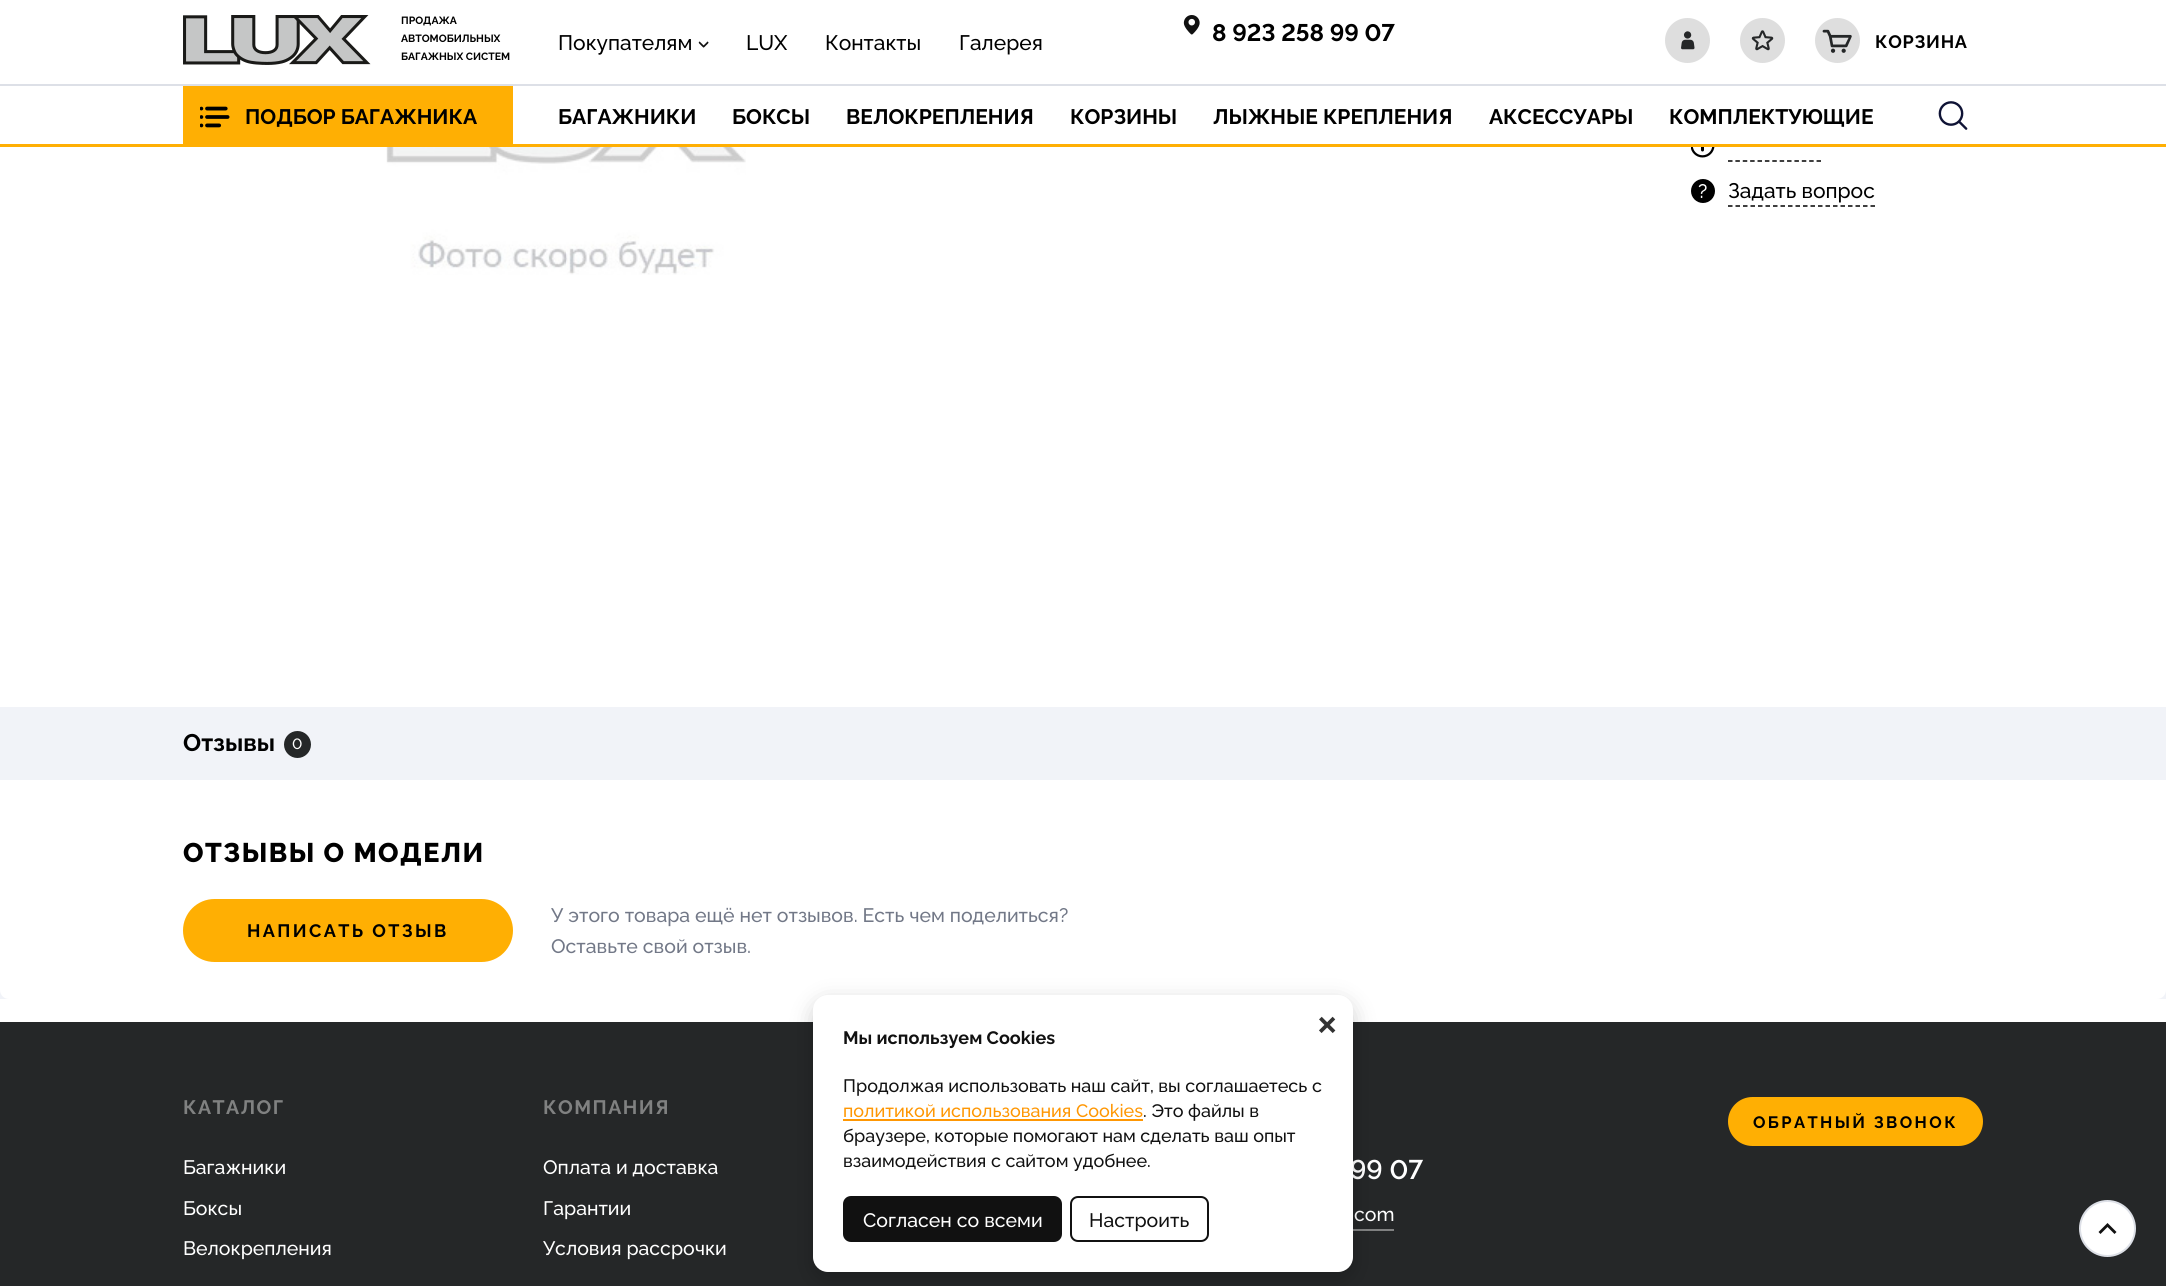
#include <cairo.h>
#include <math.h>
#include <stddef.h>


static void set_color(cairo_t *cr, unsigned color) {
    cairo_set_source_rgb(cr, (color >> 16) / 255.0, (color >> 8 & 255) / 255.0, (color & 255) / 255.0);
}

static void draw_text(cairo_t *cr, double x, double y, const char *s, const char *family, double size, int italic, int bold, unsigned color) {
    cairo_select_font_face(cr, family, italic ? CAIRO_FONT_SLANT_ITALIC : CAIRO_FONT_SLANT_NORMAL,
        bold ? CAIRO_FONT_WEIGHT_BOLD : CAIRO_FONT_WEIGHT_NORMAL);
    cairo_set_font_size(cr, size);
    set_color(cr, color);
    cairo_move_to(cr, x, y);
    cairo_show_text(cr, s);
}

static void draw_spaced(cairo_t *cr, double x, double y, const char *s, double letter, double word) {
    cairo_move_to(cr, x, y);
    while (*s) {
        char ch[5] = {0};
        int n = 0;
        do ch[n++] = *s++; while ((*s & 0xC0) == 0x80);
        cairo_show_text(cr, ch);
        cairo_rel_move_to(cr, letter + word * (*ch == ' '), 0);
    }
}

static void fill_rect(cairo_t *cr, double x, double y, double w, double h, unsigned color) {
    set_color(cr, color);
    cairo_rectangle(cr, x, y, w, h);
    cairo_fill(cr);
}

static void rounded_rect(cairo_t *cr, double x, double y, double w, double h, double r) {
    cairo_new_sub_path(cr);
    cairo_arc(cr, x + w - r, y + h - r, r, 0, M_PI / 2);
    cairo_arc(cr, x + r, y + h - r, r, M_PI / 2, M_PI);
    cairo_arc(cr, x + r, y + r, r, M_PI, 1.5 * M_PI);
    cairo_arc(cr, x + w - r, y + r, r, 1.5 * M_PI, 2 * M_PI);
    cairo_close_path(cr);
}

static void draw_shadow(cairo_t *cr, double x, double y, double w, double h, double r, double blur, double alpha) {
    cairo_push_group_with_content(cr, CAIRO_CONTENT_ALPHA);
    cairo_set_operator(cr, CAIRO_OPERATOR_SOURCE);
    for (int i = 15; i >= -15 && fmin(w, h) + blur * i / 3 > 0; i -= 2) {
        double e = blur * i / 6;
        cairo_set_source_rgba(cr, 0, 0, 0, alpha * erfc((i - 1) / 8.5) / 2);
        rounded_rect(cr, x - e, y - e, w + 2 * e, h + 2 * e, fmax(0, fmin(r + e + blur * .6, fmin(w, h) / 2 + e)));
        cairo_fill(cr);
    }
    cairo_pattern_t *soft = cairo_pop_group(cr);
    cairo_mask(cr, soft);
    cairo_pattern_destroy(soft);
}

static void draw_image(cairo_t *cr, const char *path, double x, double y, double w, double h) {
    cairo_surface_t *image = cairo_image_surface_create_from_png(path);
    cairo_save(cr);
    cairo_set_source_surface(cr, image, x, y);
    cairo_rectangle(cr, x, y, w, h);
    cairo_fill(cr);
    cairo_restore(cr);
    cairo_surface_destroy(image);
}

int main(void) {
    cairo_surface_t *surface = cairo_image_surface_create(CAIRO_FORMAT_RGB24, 2166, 1286);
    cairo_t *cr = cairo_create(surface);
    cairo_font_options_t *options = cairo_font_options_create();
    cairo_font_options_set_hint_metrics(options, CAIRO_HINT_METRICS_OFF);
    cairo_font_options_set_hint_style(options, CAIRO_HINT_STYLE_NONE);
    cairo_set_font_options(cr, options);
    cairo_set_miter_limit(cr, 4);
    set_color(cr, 0x252728);
    cairo_paint(cr);
    fill_rect(cr, 0, 0, 2166, 84, 0xFFFFFF);
    draw_image(cr, "assets/img1.png", 183, 15, 188, 50);
    draw_text(cr, 401, 24, "ПРОДАЖА", "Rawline", 10.5, 0, 1, 0x000000);
    draw_text(cr, 401, 42, "АВТОМОБИЛЬНЫХ", "Rawline", 10.5, 0, 1, 0x000000);
    draw_text(cr, 401, 60, "БАГАЖНЫХ СИСТЕМ", "Rawline", 10.5, 0, 1, 0x000000);
    set_color(cr, 0xDEDEDE);
    cairo_new_path(cr);
    cairo_arc(cr, 1687.5, 40.5, 21.5, 0, 2 * M_PI);
    cairo_fill_preserve(cr);
    cairo_stroke(cr);
    draw_image(cr, "assets/img2.png", 1681, 31, 14, 19);
    cairo_arc(cr, 1762.5, 40.5, 21.5, 0, 2 * M_PI);
    cairo_fill_preserve(cr);
    cairo_stroke(cr);
    draw_image(cr, "assets/img3.png", 1751, 30, 23, 21);
    cairo_arc(cr, 1837.5, 40.5, 21.5, 0, 2 * M_PI);
    cairo_fill_preserve(cr);
    cairo_stroke(cr);
    draw_image(cr, "assets/img4.png", 1822, 29, 30, 24);
    cairo_set_font_size(cr, 18);
    set_color(cr, 0x000000);
    draw_spaced(cr, 1875, 48, "КОРЗИНА", 0.75, 0);
    draw_image(cr, "assets/img5.png", 1183, 15, 17, 20);
    draw_text(cr, 1212, 41, "8 923 258 99 07", "Rawline", 24, 0, 1, 0x000000);
    draw_text(cr, 558, 50, "Покупателям", "Rawline Medium", 21, 0, 0, 0x000000);
    draw_image(cr, "assets/img6.png", 698, 41, 11, 7);
    draw_text(cr, 746, 50, "LUX", "Rawline Medium", 21, 0, 0, 0x000000);
    draw_text(cr, 825, 50, "Контакты", "Rawline Medium", 21, 0, 0, 0x000000);
    draw_text(cr, 959, 50, "Галерея", "Rawline Medium", 21, 0, 0, 0x000000);
    fill_rect(cr, 0, 86, 2166, 58, 0xFFFFFF);
    fill_rect(cr, 0, 84, 2166, 2, 0xDDE0E7);
    fill_rect(cr, 0, 144, 2166, 3, 0xFFAF03);
    fill_rect(cr, 183, 86, 330, 58, 0xFFAF03);
    draw_image(cr, "assets/img7.png", 200, 106, 30, 22);
    draw_text(cr, 245, 124, "ПОДБОР БАГАЖНИКА", "Rawline", 21, 0, 1, 0x000000);
    draw_text(cr, 558, 124, "БАГАЖНИКИ", "Rawline", 21, 0, 1, 0x000000);
    draw_text(cr, 732, 124, "БОКСЫ", "Rawline", 21, 0, 1, 0x000000);
    draw_text(cr, 846, 124, "ВЕЛОКРЕПЛЕНИЯ", "Rawline", 21, 0, 1, 0x000000);
    draw_text(cr, 1070, 124, "КОРЗИНЫ", "Rawline", 21, 0, 1, 0x000000);
    draw_text(cr, 1213, 124, "ЛЫЖНЫЕ КРЕПЛЕНИЯ", "Rawline", 21, 0, 1, 0x000000);
    draw_text(cr, 1489, 124, "АКСЕССУАРЫ", "Rawline", 21, 0, 1, 0x000000);
    draw_text(cr, 1669, 124, "КОМПЛЕКТУЮЩИЕ", "Rawline", 21, 0, 1, 0x000000);
    draw_image(cr, "assets/img8.png", 1938, 101, 30, 29);
    fill_rect(cr, 0, 147, 2166, 560, 0xFFFFFF);
    draw_image(cr, "assets/img9.png", 386, 147, 360, 128);
    draw_image(cr, "assets/img10.png", 1691, 147, 24, 11);
    cairo_new_path(cr);
    cairo_move_to(cr, 1728, 161);
    cairo_line_to(cr, 1821, 161);
    set_color(cr, 0x000000);
    cairo_set_line_width(cr, 1.5);
    cairo_set_dash(cr, (double[]){4.5, 2.88}, 2, 0);
    cairo_stroke(cr);
    cairo_arc(cr, 1703, 191, 12, 0, 2 * M_PI);
    cairo_fill(cr);
    draw_text(cr, 1698, 198, "?", "Rawline Medium", 19.5, 0, 0, 0xFFFFFF);
    draw_text(cr, 1728, 198, "Задать вопрос", "Rawline Medium", 21, 0, 0, 0x000000);
    cairo_new_path(cr);
    cairo_move_to(cr, 1728, 206);
    cairo_line_to(cr, 1875, 206);
    cairo_set_dash(cr, (double[]){4.5, 3}, 2, 0);
    cairo_stroke(cr);
    fill_rect(cr, 0, 999, 2166, 23, 0xFFFFFF);
    fill_rect(cr, 0, 707, 2166, 292, 0xF1F3F8);
    draw_text(cr, 183, 751, "Отзывы", "Rawline", 24, 0, 1, 0x000000);
    set_color(cr, 0x252728);
    cairo_new_path(cr);
    cairo_arc(cr, 297.5, 744.5, 13.5, 0, 2 * M_PI);
    cairo_fill(cr);
    draw_text(cr, 292, 749, "0", "Rawline Medium", 15, 0, 0, 0xFFFFFF);
    cairo_new_path(cr);
    cairo_move_to(cr, 0, 780);
    cairo_line_to(cr, 2166, 780);
    cairo_line_to(cr, 2166, 990);
    cairo_curve_to(cr, 2166, 995, 2162, 999, 2157, 999);
    cairo_line_to(cr, 9, 999);
    cairo_curve_to(cr, 4, 999, 0, 995, 0, 990);
    cairo_close_path(cr);
    cairo_fill(cr);
    cairo_select_font_face(cr, "Rawline ExtraBold", CAIRO_FONT_SLANT_NORMAL, CAIRO_FONT_WEIGHT_NORMAL);
    cairo_set_font_size(cr, 27);
    set_color(cr, 0x000000);
    draw_spaced(cr, 183, 862, "ОТЗЫВЫ О МОДЕЛИ", 1.5, 0);
    set_color(cr, 0xFFAF03);
    rounded_rect(cr, 184, 900, 328, 61, 30.5);
    cairo_fill_preserve(cr);
    cairo_set_line_width(cr, 2);
    cairo_set_dash(cr, NULL, 0, 0);
    cairo_stroke(cr);
    cairo_select_font_face(cr, "Rawline", CAIRO_FONT_SLANT_NORMAL, CAIRO_FONT_WEIGHT_BOLD);
    cairo_set_font_size(cr, 18);
    set_color(cr, 0x000000);
    draw_spaced(cr, 247, 937, "НАПИСАТЬ ОТЗЫВ", 2.4, 0);
    draw_text(cr, 551, 922, "У этого товара ещё нет отзывов. Есть чем поделиться?", "Rawline Medium", 19.5, 0, 0, 0x727887);
    draw_text(cr, 551, 953, "Оставьте свой отзыв.", "Rawline Medium", 19.5, 0, 0, 0x727887);
    cairo_select_font_face(cr, "Rawline", CAIRO_FONT_SLANT_NORMAL, CAIRO_FONT_WEIGHT_BOLD);
    set_color(cr, 0x808181);
    draw_spaced(cr, 183, 1114, "КАТАЛОГ", 1.5, 0);
    draw_text(cr, 183, 1174, "Багажники", "Rawline Medium", 19.5, 0, 0, 0xFFFFFF);
    draw_text(cr, 183, 1215, "Боксы", "Rawline Medium", 19.5, 0, 0, 0xFFFFFF);
    draw_text(cr, 183, 1255, "Велокрепления", "Rawline Medium", 19.5, 0, 0, 0xFFFFFF);
    cairo_select_font_face(cr, "Rawline", CAIRO_FONT_SLANT_NORMAL, CAIRO_FONT_WEIGHT_BOLD);
    set_color(cr, 0x808181);
    draw_spaced(cr, 543, 1114, "КОМПАНИЯ", 1.5, 0);
    draw_text(cr, 543, 1174, "Оплата и доставка", "Rawline Medium", 19.5, 0, 0, 0xFFFFFF);
    draw_text(cr, 543, 1215, "Гарантии", "Rawline Medium", 19.5, 0, 0, 0xFFFFFF);
    draw_text(cr, 543, 1255, "Условия рассрочки", "Rawline Medium", 19.5, 0, 0, 0xFFFFFF);
    set_color(cr, 0xFFAF03);
    rounded_rect(cr, 1729, 1098, 253, 47, 23.5);
    cairo_fill_preserve(cr);
    cairo_stroke(cr);
    cairo_select_font_face(cr, "Rawline", CAIRO_FONT_SLANT_NORMAL, CAIRO_FONT_WEIGHT_BOLD);
    cairo_set_font_size(cr, 16.5);
    set_color(cr, 0x000000);
    draw_spaced(cr, 1753, 1128, "ОБРАТНЫЙ ЗВОНОК", 2.4, 0);
    draw_text(cr, 1350, 1179, "99 07", "Rawline SemiBold", 27, 0, 0, 0xFFFFFF);
    draw_text(cr, 1354, 1221, "com", "Rawline Medium", 19.5, 0, 0, 0xFFFFFF);
    fill_rect(cr, 1353, 1229, 41, 2, 0x808181);
    set_color(cr, 0xFFFFFF);
    cairo_new_path(cr);
    cairo_arc(cr, 2107.5, 1228.5, 27.5, 0, 2 * M_PI);
    cairo_fill_preserve(cr);
    set_color(cr, 0xDDE0E7);
    cairo_stroke(cr);
    set_color(cr, 0x111111);
    cairo_new_path(cr);
    cairo_move_to(cr, 2098.5, 1232);
    cairo_line_to(cr, 2100.5, 1234);
    cairo_line_to(cr, 2107.5, 1227);
    cairo_line_to(cr, 2114.5, 1234);
    cairo_line_to(cr, 2116.5, 1232);
    cairo_line_to(cr, 2107.5, 1223);
    cairo_close_path(cr);
    cairo_fill(cr);
    set_color(cr, 0x000000);
    draw_shadow(cr, 813, 1002, 540, 278, 15, 11, 0.2);
    set_color(cr, 0xFFFFFF);
    rounded_rect(cr, 813, 995, 540, 277, 15);
    cairo_fill(cr);
    draw_text(cr, 1316, 1038, "×", "Rawline Medium", 48, 0, 0, 0x333333);
    draw_text(cr, 843, 1044, "Мы используем Cookies", "Rawline", 18, 0, 1, 0x111111);
    draw_text(cr, 843, 1092, "Продолжая использовать наш сайт, вы соглашаетесь с", "Rawline Medium", 18, 0, 0, 0x111111);
    draw_text(cr, 843, 1117, "политикой использования Cookies", "Rawline Medium", 18, 0, 0, 0xFF9703);
    fill_rect(cr, 843, 1119, 300, 2, 0xFF9703);
    draw_text(cr, 1143, 1117, ". Это файлы в", "Rawline Medium", 18, 0, 0, 0x111111);
    draw_text(cr, 843, 1142, "браузере, которые помогают нам сделать ваш опыт", "Rawline Medium", 18, 0, 0, 0x111111);
    draw_text(cr, 843, 1167, "взаимодействия с сайтом удобнее.", "Rawline Medium", 18, 0, 0, 0x111111);
    rounded_rect(cr, 844, 1197, 217, 44, 7);
    cairo_fill_preserve(cr);
    cairo_stroke(cr);
    draw_text(cr, 863, 1227, "Согласен со всеми", "Rawline Medium", 19.5, 0, 0, 0xFFFFFF);
    rounded_rect(cr, 1071, 1197, 137, 44, 7);
    set_color(cr, 0x111111);
    cairo_stroke(cr);
    draw_text(cr, 1089, 1227, "Настроить", "Rawline Medium", 19.5, 0, 0, 0x111111);
    cairo_surface_write_to_png(surface, "output.png");
    cairo_font_options_destroy(options);
    cairo_destroy(cr);
    cairo_surface_destroy(surface);
    return 0;
}
